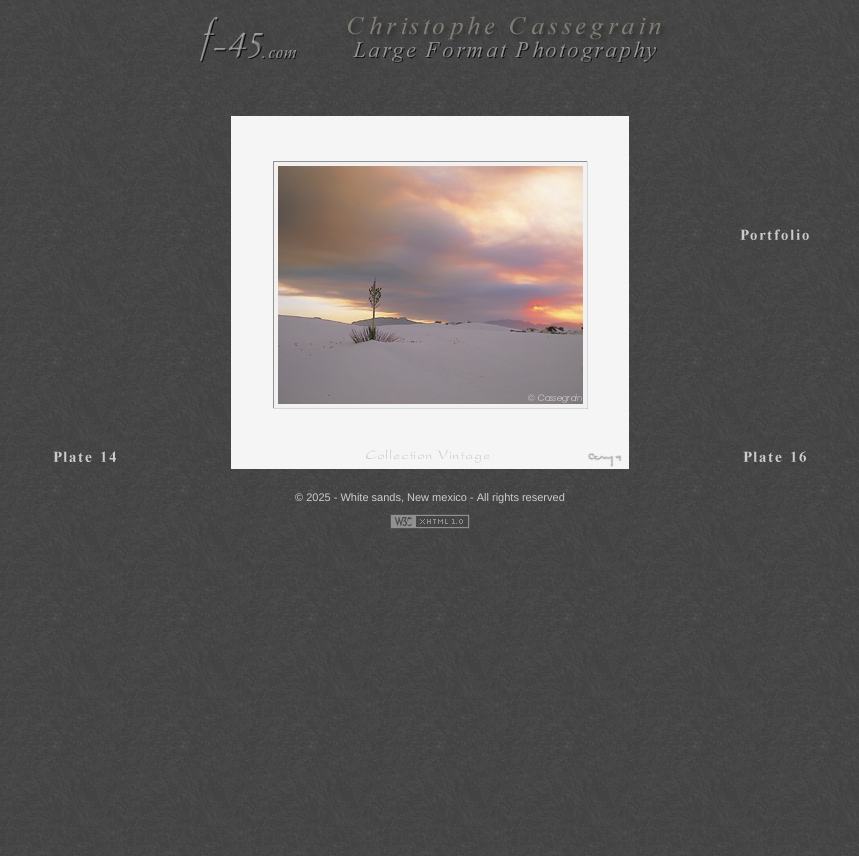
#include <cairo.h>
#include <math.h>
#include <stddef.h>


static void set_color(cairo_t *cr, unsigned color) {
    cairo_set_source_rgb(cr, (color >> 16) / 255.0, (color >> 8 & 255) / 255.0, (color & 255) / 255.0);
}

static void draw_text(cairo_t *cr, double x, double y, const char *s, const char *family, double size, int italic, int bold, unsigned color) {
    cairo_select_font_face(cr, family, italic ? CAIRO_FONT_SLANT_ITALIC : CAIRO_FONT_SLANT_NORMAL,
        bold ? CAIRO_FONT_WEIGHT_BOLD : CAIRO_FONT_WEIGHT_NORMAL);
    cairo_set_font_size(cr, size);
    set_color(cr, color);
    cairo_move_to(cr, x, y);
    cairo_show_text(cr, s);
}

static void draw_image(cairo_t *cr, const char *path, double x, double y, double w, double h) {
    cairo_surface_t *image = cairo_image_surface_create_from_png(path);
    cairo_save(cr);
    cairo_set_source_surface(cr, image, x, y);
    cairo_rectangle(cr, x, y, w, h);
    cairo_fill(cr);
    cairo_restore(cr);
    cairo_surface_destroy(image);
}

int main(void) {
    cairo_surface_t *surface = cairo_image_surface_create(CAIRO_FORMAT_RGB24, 859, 856);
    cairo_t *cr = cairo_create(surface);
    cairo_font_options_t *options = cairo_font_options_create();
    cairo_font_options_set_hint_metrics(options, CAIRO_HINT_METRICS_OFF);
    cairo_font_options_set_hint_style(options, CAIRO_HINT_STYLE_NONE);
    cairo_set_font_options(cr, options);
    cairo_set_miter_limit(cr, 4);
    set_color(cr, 0xFFFFFF);
    cairo_paint(cr);
    draw_image(cr, "assets/img1.png", 0, 0, 859, 856);
    draw_image(cr, "assets/img2.png", 0, 11, 859, 518);
    draw_image(cr, "assets/img3.png", 174, 11, 512, 60);
    draw_image(cr, "assets/img4.png", 35, 443, 100, 26);
    draw_image(cr, "assets/img5.png", 231, 116, 398, 353);
    draw_image(cr, "assets/img6.png", 725, 221, 100, 26);
    draw_image(cr, "assets/img7.png", 725, 443, 100, 26);
    draw_text(cr, 295, 501, "© 2025 - White sands, New mexico - All rights reserved", "Liberation Sans", 11, 0, 0, 0xCCCCCC);
    draw_image(cr, "assets/img8.png", 390, 514, 80, 15);
    cairo_surface_write_to_png(surface, "output.png");
    cairo_font_options_destroy(options);
    cairo_destroy(cr);
    cairo_surface_destroy(surface);
    return 0;
}
